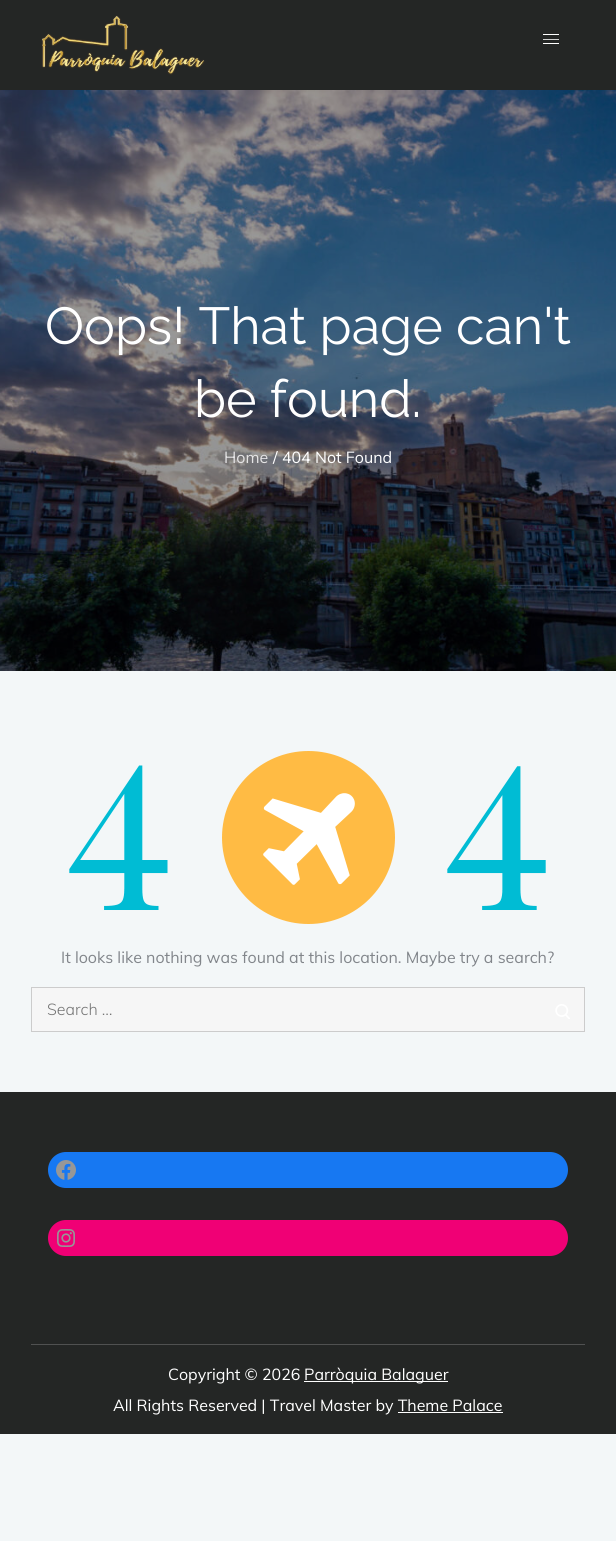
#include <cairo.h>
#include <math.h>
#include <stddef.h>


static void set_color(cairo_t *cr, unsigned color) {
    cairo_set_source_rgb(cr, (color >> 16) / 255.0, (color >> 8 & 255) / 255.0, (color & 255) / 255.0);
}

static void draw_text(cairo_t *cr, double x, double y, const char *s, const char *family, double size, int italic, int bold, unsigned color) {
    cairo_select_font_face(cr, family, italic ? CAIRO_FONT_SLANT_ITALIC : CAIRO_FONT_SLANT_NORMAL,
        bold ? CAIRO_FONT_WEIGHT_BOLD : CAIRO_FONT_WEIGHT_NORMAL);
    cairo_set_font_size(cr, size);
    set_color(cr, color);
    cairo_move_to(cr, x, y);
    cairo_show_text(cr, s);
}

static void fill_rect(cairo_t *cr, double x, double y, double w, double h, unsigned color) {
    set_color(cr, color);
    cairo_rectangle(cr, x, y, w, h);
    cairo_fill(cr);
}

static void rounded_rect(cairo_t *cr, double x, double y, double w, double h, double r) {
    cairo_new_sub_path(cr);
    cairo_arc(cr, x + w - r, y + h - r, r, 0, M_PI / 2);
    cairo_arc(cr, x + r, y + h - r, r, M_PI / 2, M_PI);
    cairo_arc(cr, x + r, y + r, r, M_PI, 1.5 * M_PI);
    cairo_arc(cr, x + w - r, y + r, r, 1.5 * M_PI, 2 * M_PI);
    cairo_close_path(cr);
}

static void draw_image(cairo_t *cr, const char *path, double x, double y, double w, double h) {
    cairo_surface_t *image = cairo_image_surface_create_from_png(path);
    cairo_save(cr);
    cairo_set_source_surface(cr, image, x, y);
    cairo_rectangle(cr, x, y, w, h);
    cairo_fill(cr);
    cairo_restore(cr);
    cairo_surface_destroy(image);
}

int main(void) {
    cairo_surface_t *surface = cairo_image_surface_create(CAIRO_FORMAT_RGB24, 616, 1541);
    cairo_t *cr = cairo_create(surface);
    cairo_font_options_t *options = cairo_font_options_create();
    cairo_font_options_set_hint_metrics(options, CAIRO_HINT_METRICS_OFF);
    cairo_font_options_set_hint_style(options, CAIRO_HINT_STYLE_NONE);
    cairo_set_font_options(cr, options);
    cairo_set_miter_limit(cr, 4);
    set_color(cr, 0xF3F7F8);
    cairo_paint(cr);
    fill_rect(cr, 0, 0, 616, 90, 0x242625);
    draw_image(cr, "assets/img1.png", 41, 15, 164, 60);
    fill_rect(cr, 543, 34, 16, 1, 0xFFFFFF);
    fill_rect(cr, 543, 39, 16, 1, 0xD3D4D3);
    fill_rect(cr, 543, 43, 16, 1, 0xFFFFFF);
    draw_image(cr, "assets/img2.png", 0, 90, 616, 581);
    draw_text(cr, 45, 344, "Oops! That page can't", "Raleway Thin", 52, 0, 0, 0xFFFFFF);
    draw_text(cr, 194, 417, "be found.", "Raleway Thin", 52, 0, 0, 0xFFFFFF);
    draw_text(cr, 224, 463, "Home", "Muli", 16, 0, 0, 0xE5E4E5);
    draw_text(cr, 273, 463, "/", "Muli", 16, 0, 0, 0xFFFFFF);
    draw_text(cr, 282, 463, "404 Not Found", "Muli", 16, 0, 0, 0xFFFFFF);
    draw_image(cr, "assets/img3.png", 69, 751, 477, 173);
    draw_text(cr, 61, 963, "It looks like nothing was found at this location. Maybe try a search?", "Muli", 16, 0, 0, 0x82868B);
    set_color(cr, 0xF6F6F6);
    cairo_rectangle(cr, 31.5, 987.5, 553, 44);
    cairo_fill_preserve(cr);
    set_color(cr, 0xCCCCCC);
    cairo_set_line_width(cr, 1);
    cairo_stroke(cr);
    draw_text(cr, 47, 1015, "Search …", "Muli Light", 16, 0, 0, 0x757575);
    draw_image(cr, "assets/img4.png", 555, 1004, 15, 15);
    fill_rect(cr, 0, 1092, 616, 342, 0x242625);
    set_color(cr, 0x1778F2);
    rounded_rect(cr, 48, 1152, 520, 36, 18);
    cairo_fill(cr);
    draw_image(cr, "assets/img5.png", 56, 1160, 20, 20);
    set_color(cr, 0xF00075);
    rounded_rect(cr, 48, 1220, 520, 36, 18);
    cairo_fill(cr);
    draw_image(cr, "assets/img6.png", 57, 1229, 18, 18);
    fill_rect(cr, 31, 1344, 554, 1, 0x505151);
    draw_text(cr, 168, 1380, "Copyright © 2026", "Muli", 16, 0, 0, 0xFFFFFF);
    fill_rect(cr, 304, 1381, 144, 1, 0xFFFFFF);
    draw_text(cr, 304, 1380, "Parròquia Balaguer", "Muli", 16, 0, 0, 0xFFFFFF);
    draw_text(cr, 113, 1411, "All Rights Reserved | Travel Master by Theme Palace", "Muli", 16, 0, 0, 0xFFFFFF);
    fill_rect(cr, 398, 1412, 105, 1, 0xFFFFFF);
    cairo_surface_write_to_png(surface, "output.png");
    cairo_font_options_destroy(options);
    cairo_destroy(cr);
    cairo_surface_destroy(surface);
    return 0;
}
